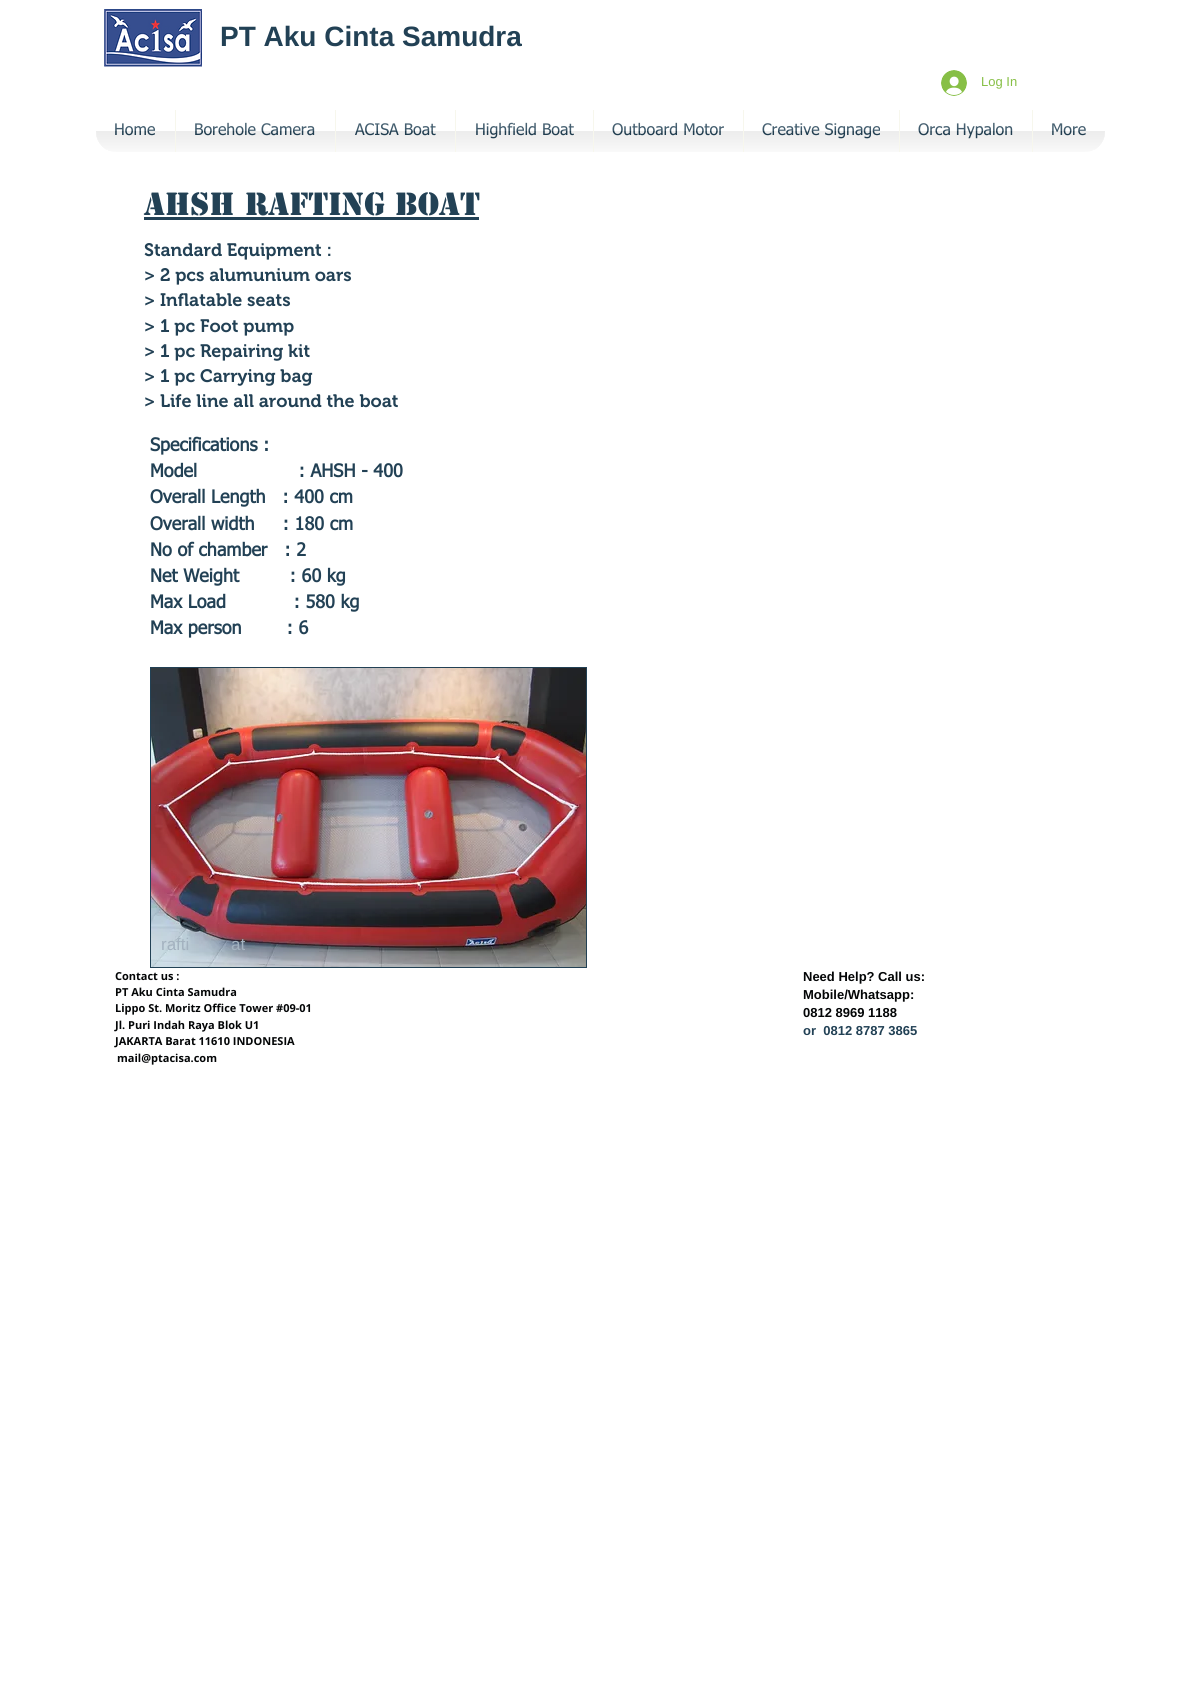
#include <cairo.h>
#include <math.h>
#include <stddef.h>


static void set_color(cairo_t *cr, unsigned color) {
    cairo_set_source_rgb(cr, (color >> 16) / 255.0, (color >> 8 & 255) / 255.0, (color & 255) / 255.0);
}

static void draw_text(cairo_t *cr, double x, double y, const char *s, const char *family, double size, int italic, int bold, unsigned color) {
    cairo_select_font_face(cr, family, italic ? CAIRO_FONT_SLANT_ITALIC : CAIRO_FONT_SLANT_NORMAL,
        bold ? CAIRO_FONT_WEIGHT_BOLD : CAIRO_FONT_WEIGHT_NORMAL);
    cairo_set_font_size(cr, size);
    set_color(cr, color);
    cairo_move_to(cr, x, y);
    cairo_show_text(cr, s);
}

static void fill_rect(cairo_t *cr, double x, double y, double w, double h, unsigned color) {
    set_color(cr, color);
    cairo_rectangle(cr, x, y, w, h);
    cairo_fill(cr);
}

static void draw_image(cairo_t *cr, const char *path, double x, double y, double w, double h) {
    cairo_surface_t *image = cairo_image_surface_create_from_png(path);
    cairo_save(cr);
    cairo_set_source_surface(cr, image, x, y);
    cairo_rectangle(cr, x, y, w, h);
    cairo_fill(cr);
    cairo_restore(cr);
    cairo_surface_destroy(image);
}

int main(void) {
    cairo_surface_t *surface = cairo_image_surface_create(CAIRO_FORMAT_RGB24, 1187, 1692);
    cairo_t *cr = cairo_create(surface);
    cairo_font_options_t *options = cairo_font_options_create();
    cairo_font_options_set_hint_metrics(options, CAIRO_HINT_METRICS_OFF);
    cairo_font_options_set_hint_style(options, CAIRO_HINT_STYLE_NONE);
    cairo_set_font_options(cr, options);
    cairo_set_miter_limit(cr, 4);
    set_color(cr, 0xFFFFFF);
    cairo_paint(cr);
    draw_image(cr, "assets/img1.png", 104, 9, 98, 58);
    draw_text(cr, 220, 46, "PT Aku Cinta Samudra", "Liberation Sans", 28, 0, 1, 0x224155);
    draw_image(cr, "assets/img2.png", 941, 70, 26, 26);
    draw_text(cr, 981, 86, "Log In", "Liberation Sans", 13, 0, 0, 0x87BF46);
    draw_image(cr, "assets/img3.png", 96, 132, 1009, 19);
    set_color(cr, 0xFFFFFF);
    cairo_new_path(cr);
    cairo_move_to(cr, 116, 110);
    cairo_line_to(cr, 175, 110);
    cairo_line_to(cr, 175, 152);
    cairo_line_to(cr, 116, 152);
    cairo_curve_to(cr, 105, 152, 96, 143, 96, 132);
    cairo_line_to(cr, 96, 130);
    cairo_curve_to(cr, 96, 119, 105, 110, 116, 110);
    cairo_close_path(cr);
    cairo_fill(cr);
    draw_text(cr, 114, 135, "Home", "tahoma", 16, 0, 0, 0x224155);
    draw_image(cr, "assets/img4.png", 96, 123, 79, 29);
    fill_rect(cr, 176, 132, 159, 19, 0xFFFFFF);
    fill_rect(cr, 175, 110, 1, 42, 0xF7F7ED);
    draw_text(cr, 194, 135, "Borehole Camera", "tahoma", 16, 0, 0, 0x224155);
    draw_image(cr, "assets/img5.png", 176, 122, 159, 30);
    fill_rect(cr, 336, 132, 119, 19, 0xFFFFFF);
    fill_rect(cr, 335, 110, 1, 42, 0xF7F7ED);
    draw_text(cr, 355, 135, "ACISA Boat", "tahoma", 16, 0, 0, 0x224155);
    draw_image(cr, "assets/img6.png", 336, 123, 119, 29);
    fill_rect(cr, 456, 132, 137, 19, 0xFFFFFF);
    fill_rect(cr, 455, 110, 1, 42, 0xF7F7ED);
    draw_text(cr, 475, 135, "Highfield Boat", "tahoma", 16, 0, 0, 0x224155);
    draw_image(cr, "assets/img7.png", 456, 122, 137, 30);
    fill_rect(cr, 594, 132, 149, 19, 0xFFFFFF);
    fill_rect(cr, 593, 110, 1, 42, 0xF7F7ED);
    draw_text(cr, 612, 135, "Outboard Motor", "tahoma", 16, 0, 0, 0x224155);
    draw_image(cr, "assets/img8.png", 594, 122, 149, 30);
    fill_rect(cr, 744, 132, 155, 19, 0xFFFFFF);
    fill_rect(cr, 743, 110, 1, 42, 0xF7F7ED);
    draw_text(cr, 762, 135, "Creative Signage", "tahoma", 16, 0, 0, 0x224155);
    draw_image(cr, "assets/img9.png", 744, 123, 155, 29);
    fill_rect(cr, 900, 132, 132, 19, 0xFFFFFF);
    fill_rect(cr, 899, 110, 1, 42, 0xF7F7ED);
    draw_text(cr, 918, 135, "Orca Hypalon", "tahoma", 16, 0, 0, 0x224155);
    draw_image(cr, "assets/img10.png", 900, 122, 132, 30);
    set_color(cr, 0xFFFFFF);
    cairo_new_path(cr);
    cairo_move_to(cr, 1032, 110);
    cairo_line_to(cr, 1085, 110);
    cairo_curve_to(cr, 1096, 110, 1105, 119, 1105, 130);
    cairo_line_to(cr, 1105, 132);
    cairo_curve_to(cr, 1105, 143, 1096, 152, 1085, 152);
    cairo_line_to(cr, 1032, 152);
    cairo_close_path(cr);
    cairo_fill(cr);
    fill_rect(cr, 1032, 110, 1, 42, 0xF7F7ED);
    draw_text(cr, 1051, 135, "More", "tahoma", 16, 0, 0, 0x224155);
    draw_image(cr, "assets/img11.png", 1033, 123, 72, 29);
    draw_text(cr, 144, 215, "AHSH rafting boat", "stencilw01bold", 30, 0, 1, 0x224155);
    fill_rect(cr, 144, 217, 335, 3, 0x224155);
    draw_text(cr, 144, 256, "Standard Equipment :", "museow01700 SemiBold", 18, 0, 0, 0x224155);
    draw_text(cr, 144, 281, "> 2 pcs alumunium oars", "museow01700 SemiBold", 18, 0, 0, 0x224155);
    draw_text(cr, 144, 306, "> Inflatable seats", "museow01700 SemiBold", 18, 0, 0, 0x224155);
    draw_text(cr, 144, 332, "> 1 pc Foot pump", "museow01700 SemiBold", 18, 0, 0, 0x224155);
    draw_text(cr, 144, 357, "> 1 pc Repairing kit", "museow01700 SemiBold", 18, 0, 0, 0x224155);
    draw_text(cr, 144, 382, "> 1 pc Carrying bag", "museow01700 SemiBold", 18, 0, 0, 0x224155);
    draw_text(cr, 144, 407, "> Life line all around the boat", "museow01700 SemiBold", 18, 0, 0, 0x224155);
    draw_text(cr, 150, 451, "Specifications :", "tahoma", 18, 0, 1, 0x224155);
    draw_text(cr, 150, 477, "Model                  : AHSH - 400", "tahoma", 18, 0, 1, 0x224155);
    draw_text(cr, 150, 503, "Overall Length   : 400 cm", "tahoma", 18, 0, 1, 0x224155);
    draw_text(cr, 150, 530, "Overall width     : 180 cm", "tahoma", 18, 0, 1, 0x224155);
    draw_text(cr, 150, 556, "No of chamber   : 2", "tahoma", 18, 0, 1, 0x224155);
    draw_text(cr, 150, 582, "Net Weight         : 60 kg", "tahoma", 18, 0, 1, 0x224155);
    draw_text(cr, 150, 608, "Max Load            : 580 kg", "tahoma", 18, 0, 1, 0x224155);
    draw_text(cr, 150, 634, "Max person        : 6", "tahoma", 18, 0, 1, 0x224155);
    fill_rect(cr, 150, 667, 437, 301, 0x224155);
    draw_image(cr, "assets/img12.png", 151, 668, 435, 299);
    draw_text(cr, 161, 950, "rafti", "Liberation Sans", 17, 0, 0, 0xA3B2BF);
    draw_text(cr, 231, 950, "at", "Liberation Sans", 17, 0, 0, 0xA3B2BF);
    draw_text(cr, 115, 980, "Contact us :", "Open Sans", 11, 0, 1, 0x030506);
    draw_text(cr, 115, 996, "PT Aku Cinta Samudra", "Open Sans", 11, 0, 1, 0x030506);
    draw_text(cr, 115, 1012, "Lippo St. Moritz Office Tower #09-01", "Open Sans", 11, 0, 1, 0x030506);
    draw_text(cr, 115, 1029, "Jl. Puri Indah Raya Blok U1", "Open Sans", 11, 0, 1, 0x030506);
    draw_text(cr, 115, 1045, "JAKARTA Barat 11610 INDONESIA", "Open Sans", 11, 0, 1, 0x030506);
    draw_text(cr, 117, 1062, "mail@ptacisa.com", "Open Sans", 11, 0, 1, 0x030506);
    draw_text(cr, 803, 981, "Need Help? Call us:", "Liberation Sans", 13, 0, 1, 0x030506);
    draw_text(cr, 803, 999, "Mobile/Whatsapp:", "Liberation Sans", 13, 0, 1, 0x030506);
    draw_text(cr, 803, 1017, "0812 8969 1188", "Liberation Sans", 13, 0, 1, 0x030506);
    draw_text(cr, 803, 1035, "or  0812 8787 3865", "Liberation Sans", 13, 0, 1, 0x224155);
    cairo_surface_write_to_png(surface, "output.png");
    cairo_font_options_destroy(options);
    cairo_destroy(cr);
    cairo_surface_destroy(surface);
    return 0;
}
